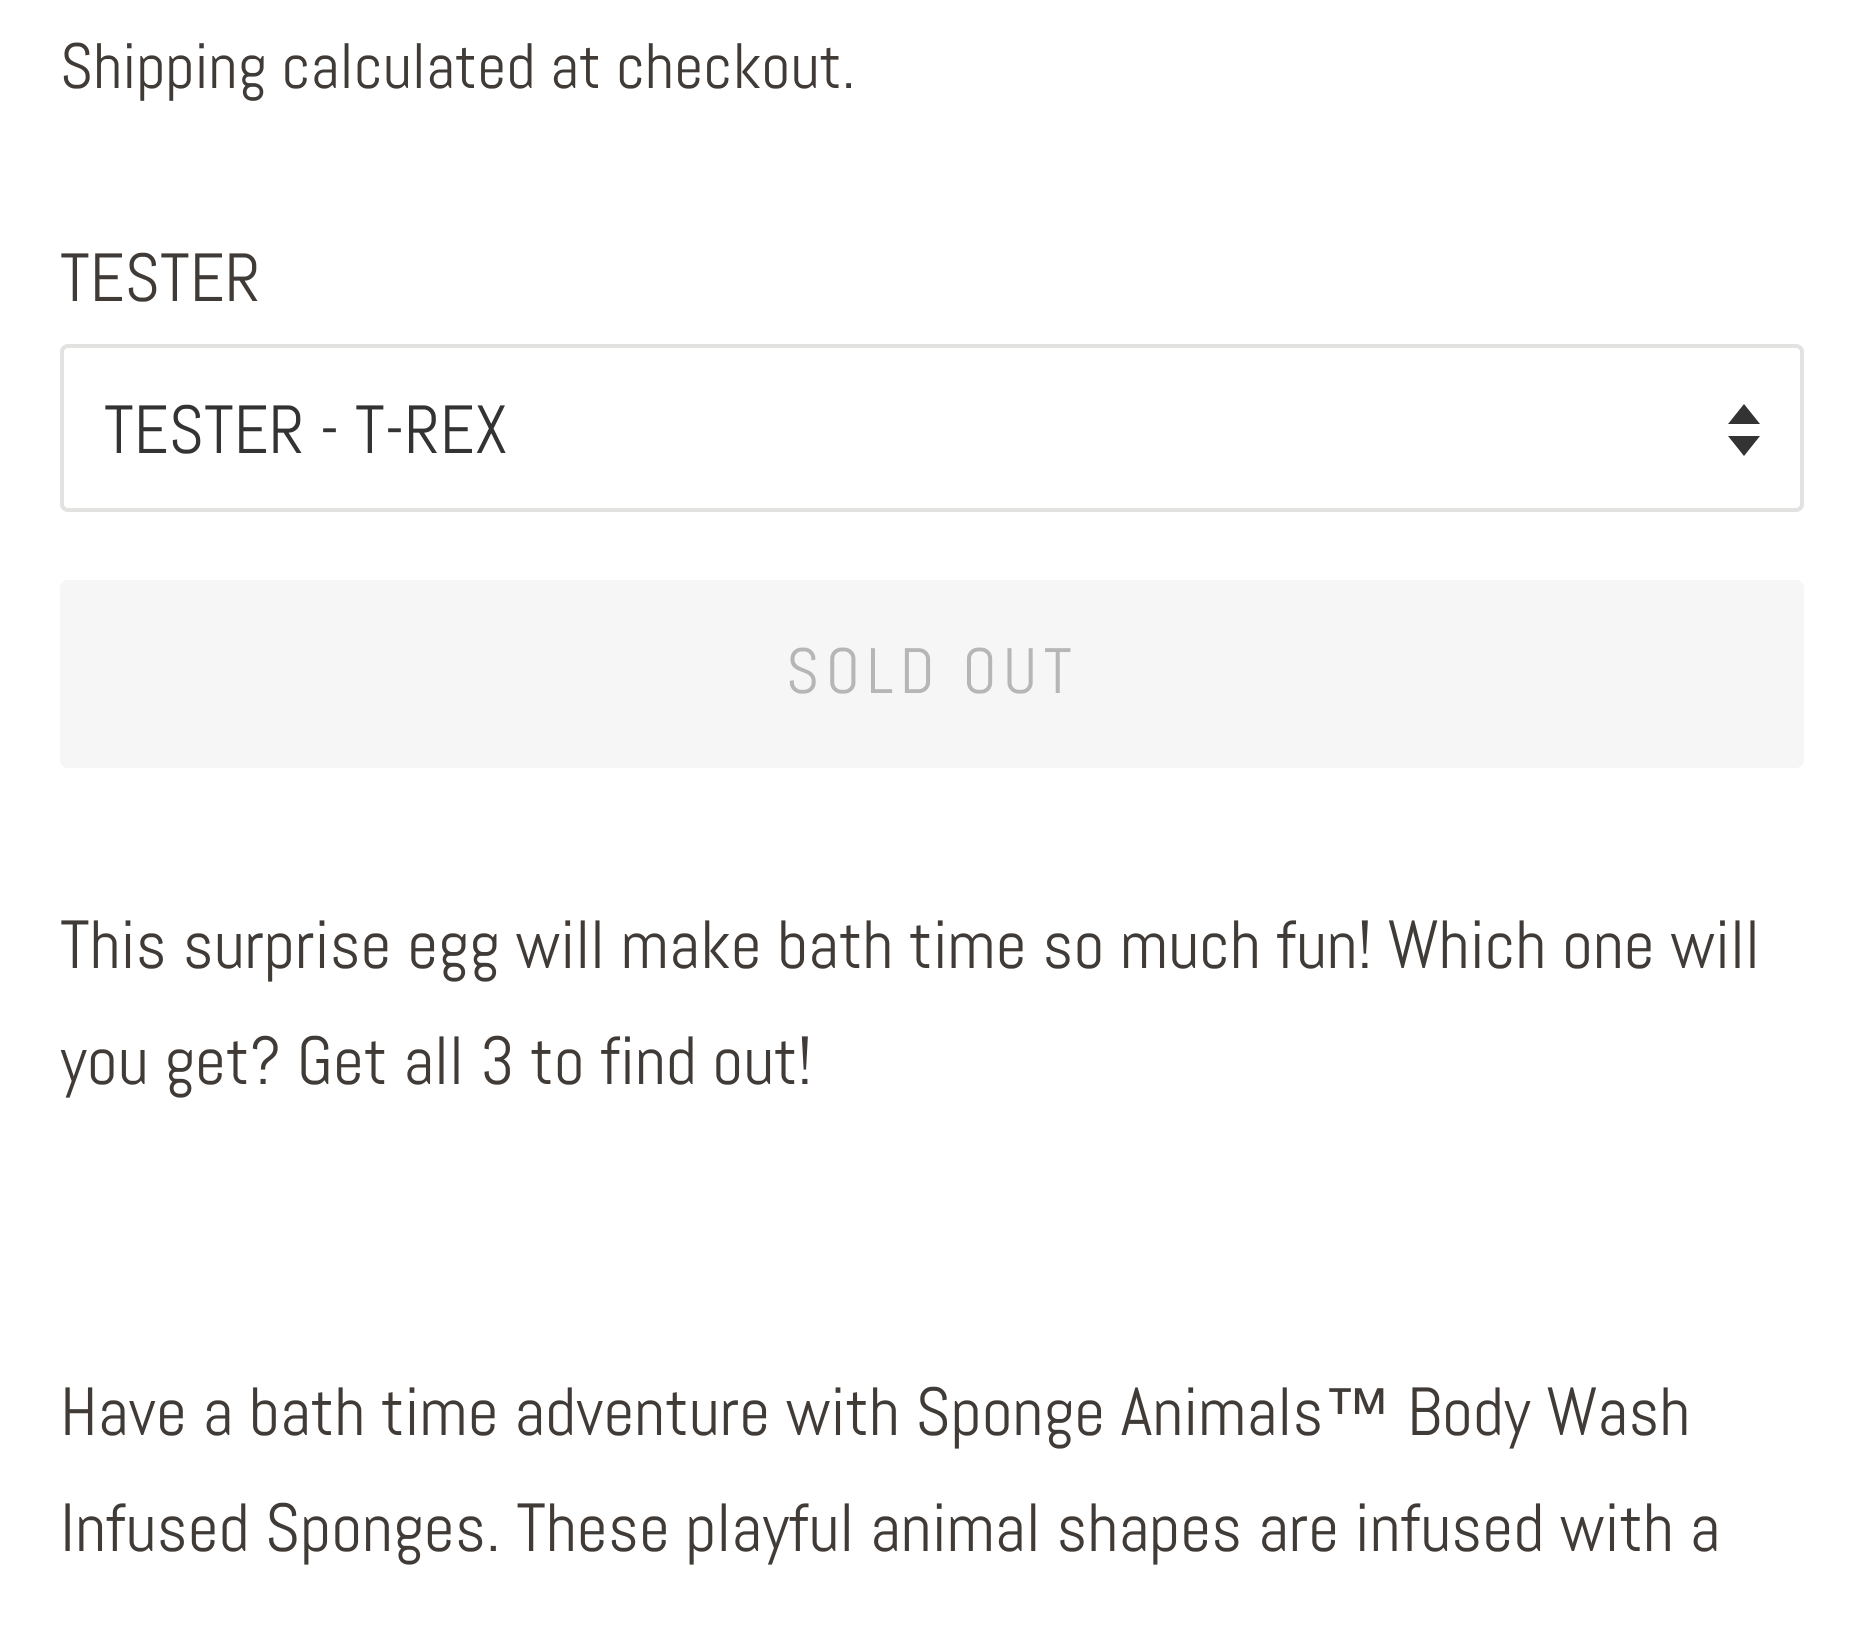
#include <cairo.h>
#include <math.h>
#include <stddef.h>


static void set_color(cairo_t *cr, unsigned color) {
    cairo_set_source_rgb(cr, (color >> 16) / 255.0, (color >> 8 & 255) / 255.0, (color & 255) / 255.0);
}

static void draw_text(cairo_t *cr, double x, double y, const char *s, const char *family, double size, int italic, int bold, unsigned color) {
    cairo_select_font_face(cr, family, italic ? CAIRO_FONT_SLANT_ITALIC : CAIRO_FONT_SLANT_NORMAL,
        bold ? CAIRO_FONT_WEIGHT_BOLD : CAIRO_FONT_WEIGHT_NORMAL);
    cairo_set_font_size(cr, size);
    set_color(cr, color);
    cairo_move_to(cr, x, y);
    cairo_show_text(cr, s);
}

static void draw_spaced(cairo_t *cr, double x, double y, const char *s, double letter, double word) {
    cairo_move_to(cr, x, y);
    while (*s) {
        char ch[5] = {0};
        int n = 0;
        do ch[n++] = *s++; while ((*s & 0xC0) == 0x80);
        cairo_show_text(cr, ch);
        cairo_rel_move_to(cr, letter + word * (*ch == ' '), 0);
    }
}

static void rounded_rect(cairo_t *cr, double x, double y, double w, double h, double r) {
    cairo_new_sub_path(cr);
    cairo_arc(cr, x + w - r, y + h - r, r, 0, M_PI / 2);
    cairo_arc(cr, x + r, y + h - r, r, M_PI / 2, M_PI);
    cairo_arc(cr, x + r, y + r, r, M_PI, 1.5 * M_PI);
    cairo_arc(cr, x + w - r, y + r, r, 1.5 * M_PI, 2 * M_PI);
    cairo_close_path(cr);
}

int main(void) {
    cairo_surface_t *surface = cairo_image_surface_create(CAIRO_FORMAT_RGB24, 1862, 1646);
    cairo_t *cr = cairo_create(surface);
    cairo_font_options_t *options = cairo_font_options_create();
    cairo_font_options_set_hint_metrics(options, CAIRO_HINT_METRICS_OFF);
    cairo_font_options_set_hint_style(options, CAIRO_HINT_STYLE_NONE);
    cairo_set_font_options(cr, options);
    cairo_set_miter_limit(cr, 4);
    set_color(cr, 0xFFFFFF);
    cairo_paint(cr);
    draw_text(cr, 60, 88, "Shipping calculated at checkout.", "Abel", 64, 0, 0, 0x403B37);
    draw_text(cr, 60, 301, "TESTER", "Abel", 68, 0, 0, 0x403B37);
    set_color(cr, 0x333333);
    cairo_new_path(cr);
    cairo_move_to(cr, 1728, 436);
    cairo_line_to(cr, 1744, 456);
    cairo_line_to(cr, 1760, 436);
    cairo_close_path(cr);
    cairo_move_to(cr, 1744, 404);
    cairo_line_to(cr, 1728, 424);
    cairo_line_to(cr, 1760, 424);
    cairo_close_path(cr);
    cairo_fill(cr);
    rounded_rect(cr, 62, 346, 1740, 164, 6);
    set_color(cr, 0xE2E2E1);
    cairo_set_line_width(cr, 4);
    cairo_stroke(cr);
    draw_text(cr, 104, 453, "TESTER - T-REX", "Abel", 68, 0, 0, 0x333333);
    set_color(cr, 0xF6F6F6);
    rounded_rect(cr, 60, 580, 1744, 188, 8);
    cairo_fill(cr);
    cairo_set_font_size(cr, 64);
    set_color(cr, 0xB6B6B6);
    draw_spaced(cr, 786, 693, "SOLD OUT", 6.5, 0);
    draw_text(cr, 60, 968, "This surprise egg will make bath time so much fun! Which one will", "Abel", 68, 0, 0, 0x403B37);
    draw_text(cr, 60, 1084, "you get? Get all 3 to find out!", "Abel", 68, 0, 0, 0x403B37);
    draw_text(cr, 60, 1435, "Have a bath time adventure with Sponge Animals", "Abel", 68, 0, 0, 0x403B37);
    draw_text(cr, 1323, 1435, "™", "Liberation Sans", 68, 0, 0, 0x403B37);
    draw_text(cr, 1407, 1435, "Body Wash", "Abel", 68, 0, 0, 0x403B37);
    draw_text(cr, 60, 1551, "Infused Sponges. These playful animal shapes are infused with a", "Abel", 68, 0, 0, 0x403B37);
    cairo_surface_write_to_png(surface, "output.png");
    cairo_font_options_destroy(options);
    cairo_destroy(cr);
    cairo_surface_destroy(surface);
    return 0;
}
